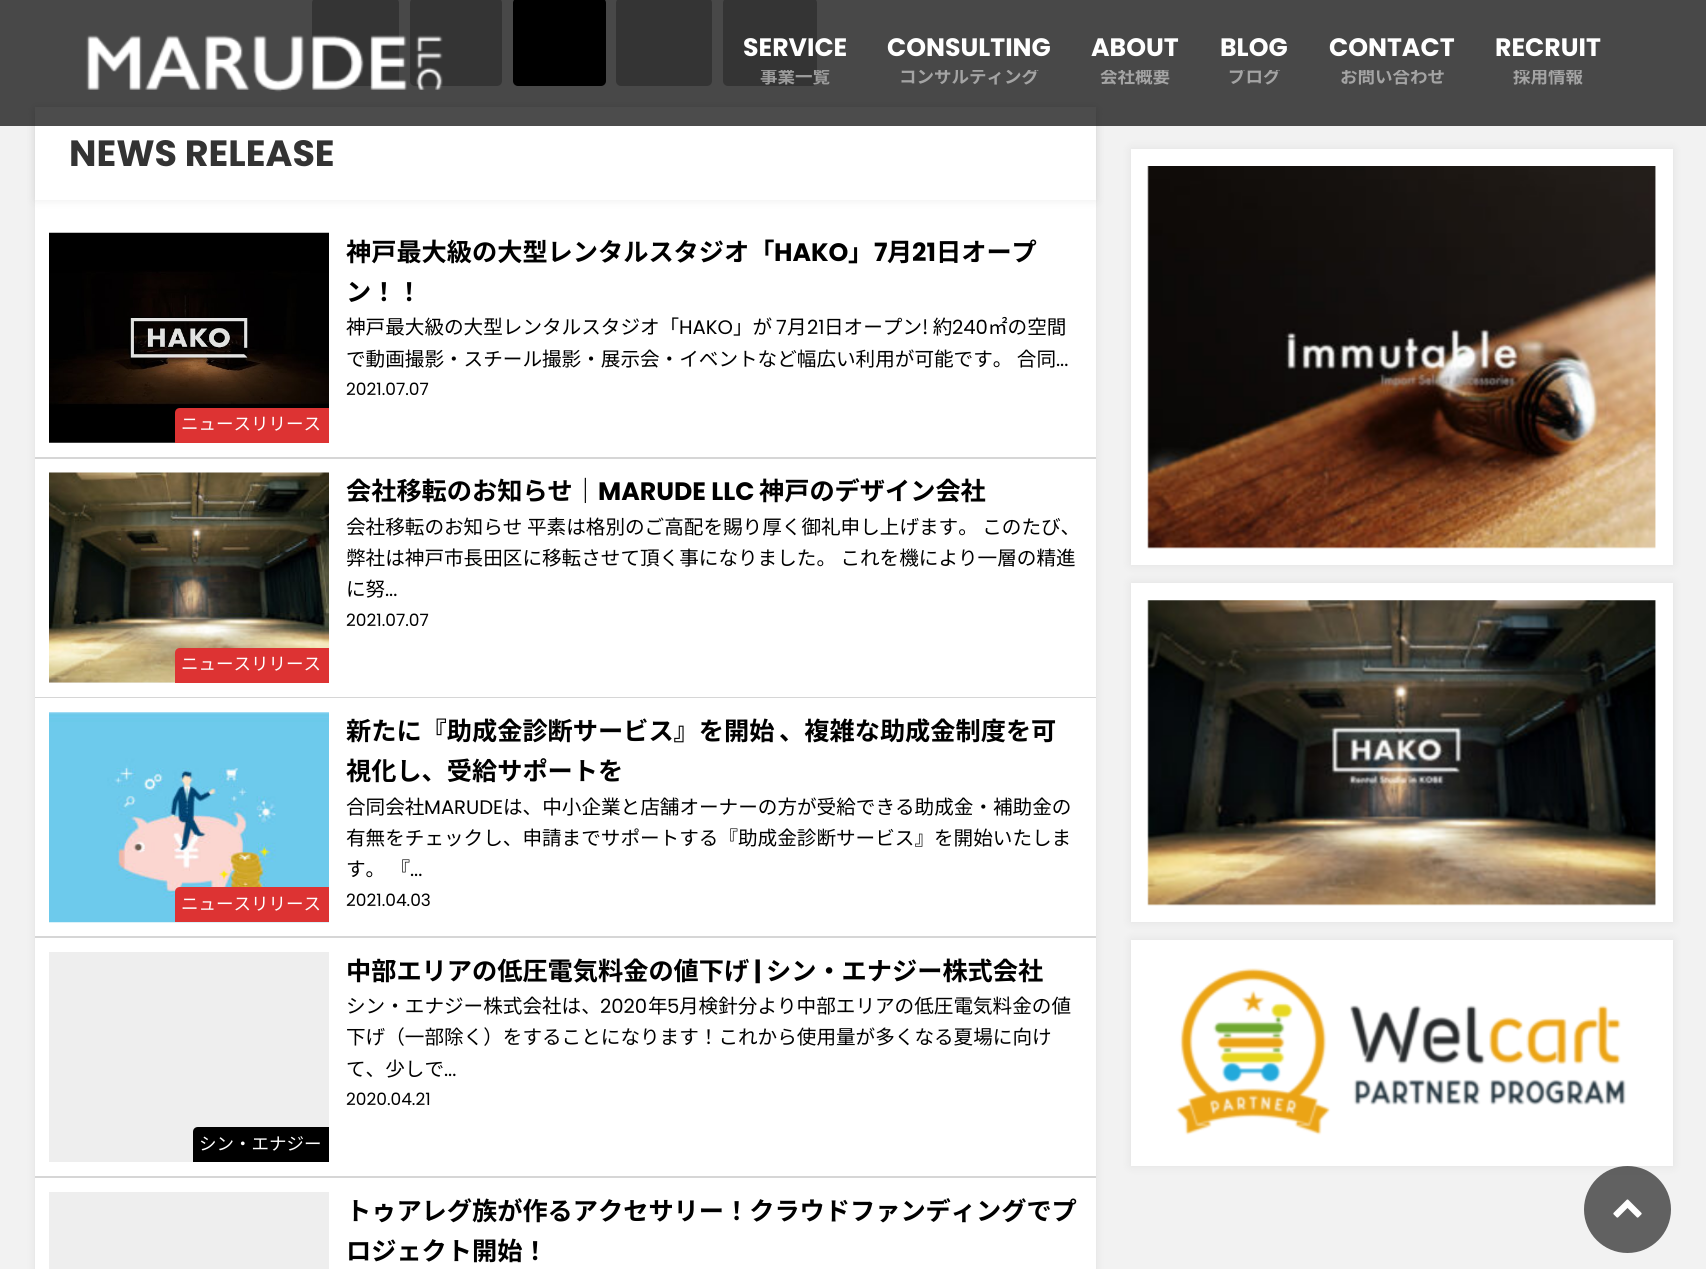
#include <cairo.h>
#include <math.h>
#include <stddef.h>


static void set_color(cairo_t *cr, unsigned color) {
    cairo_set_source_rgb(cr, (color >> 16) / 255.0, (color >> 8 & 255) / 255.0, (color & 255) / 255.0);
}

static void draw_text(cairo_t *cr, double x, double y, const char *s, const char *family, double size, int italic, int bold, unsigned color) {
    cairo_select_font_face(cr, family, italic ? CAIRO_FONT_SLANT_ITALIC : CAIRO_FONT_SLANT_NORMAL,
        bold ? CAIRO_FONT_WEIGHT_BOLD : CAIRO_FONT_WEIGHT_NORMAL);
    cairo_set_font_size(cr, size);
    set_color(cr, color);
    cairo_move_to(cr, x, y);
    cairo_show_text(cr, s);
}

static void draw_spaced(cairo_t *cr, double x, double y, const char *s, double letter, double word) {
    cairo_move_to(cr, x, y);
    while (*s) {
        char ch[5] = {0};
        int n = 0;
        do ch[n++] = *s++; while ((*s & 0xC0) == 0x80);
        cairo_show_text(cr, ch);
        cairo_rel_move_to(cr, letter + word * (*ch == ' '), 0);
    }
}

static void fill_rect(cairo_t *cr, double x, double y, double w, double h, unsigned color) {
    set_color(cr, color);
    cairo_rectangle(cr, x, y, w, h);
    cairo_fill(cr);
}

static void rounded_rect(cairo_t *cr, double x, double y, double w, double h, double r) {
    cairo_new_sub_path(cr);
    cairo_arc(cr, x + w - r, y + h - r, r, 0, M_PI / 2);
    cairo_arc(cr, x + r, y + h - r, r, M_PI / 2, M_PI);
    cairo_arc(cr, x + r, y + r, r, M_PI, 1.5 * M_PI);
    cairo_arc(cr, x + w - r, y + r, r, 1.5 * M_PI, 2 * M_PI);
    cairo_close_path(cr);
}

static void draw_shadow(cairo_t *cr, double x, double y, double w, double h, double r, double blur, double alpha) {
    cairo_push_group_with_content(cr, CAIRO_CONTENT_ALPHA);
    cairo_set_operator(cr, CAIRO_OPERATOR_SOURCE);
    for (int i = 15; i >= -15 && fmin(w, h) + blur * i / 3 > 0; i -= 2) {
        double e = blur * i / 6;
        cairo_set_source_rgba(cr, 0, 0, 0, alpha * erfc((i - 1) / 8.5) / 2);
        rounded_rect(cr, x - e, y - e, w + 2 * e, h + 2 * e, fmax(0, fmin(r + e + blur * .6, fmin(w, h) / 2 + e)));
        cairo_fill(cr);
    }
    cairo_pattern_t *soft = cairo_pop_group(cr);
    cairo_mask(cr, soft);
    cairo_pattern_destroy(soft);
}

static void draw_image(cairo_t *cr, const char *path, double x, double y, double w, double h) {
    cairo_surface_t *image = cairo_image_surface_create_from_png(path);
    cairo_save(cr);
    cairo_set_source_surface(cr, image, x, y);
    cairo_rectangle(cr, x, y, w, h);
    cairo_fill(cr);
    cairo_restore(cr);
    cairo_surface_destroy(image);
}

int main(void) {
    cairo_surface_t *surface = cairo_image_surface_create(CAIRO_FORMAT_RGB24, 1706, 1269);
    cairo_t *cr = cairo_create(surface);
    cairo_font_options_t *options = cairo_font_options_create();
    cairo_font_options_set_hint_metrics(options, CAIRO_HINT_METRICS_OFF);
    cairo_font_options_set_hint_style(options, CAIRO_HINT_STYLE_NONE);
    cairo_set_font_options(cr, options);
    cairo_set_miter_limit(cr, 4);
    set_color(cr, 0xF2F2F2);
    cairo_paint(cr);
    set_color(cr, 0xAFAFAF);
    rounded_rect(cr, 312, -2, 87, 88, 5);
    cairo_fill(cr);
    rounded_rect(cr, 410, -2, 92, 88, 5);
    cairo_fill(cr);
    set_color(cr, 0x000000);
    rounded_rect(cr, 513, -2, 93, 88, 5);
    cairo_fill(cr);
    set_color(cr, 0xAFAFAF);
    rounded_rect(cr, 616, -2, 96, 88, 5);
    cairo_fill(cr);
    rounded_rect(cr, 723, -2, 94, 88, 5);
    cairo_fill(cr);
    set_color(cr, 0x969696);
    draw_shadow(cr, 35, 112, 1061, 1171, 0, 4.5, 0.2);
    fill_rect(cr, 35, 200, 1061, 1069, 0xFFFFFF);
    set_color(cr, 0x969696);
    draw_shadow(cr, 35, 107, 1061, 93, 0, 4.5, 0.2);
    fill_rect(cr, 35, 107, 1061, 93, 0xFFFFFF);
    cairo_set_source_rgba(cr, 0, 0, 0, 0.7);
    cairo_rectangle(cr, 0, 0, 1706, 126);
    cairo_fill(cr);
    draw_image(cr, "assets/img1.png", 86, 35, 357, 57);
    draw_text(cr, 743, 56, "SERVICE", "Poppins", 25.2, 0, 1, 0xFFFFFF);
    cairo_save(cr);
    cairo_rectangle(cr, 742, 70, 105, 21);
    cairo_clip(cr);
    draw_text(cr, 760, 83, "事業一覧", "Noto Sans JP", 17.5, 0, 1, 0x9C9C9C);
    cairo_restore(cr);
    draw_text(cr, 887, 56, "CONSULTING", "Poppins", 25.2, 0, 1, 0xFFFFFF);
    cairo_save(cr);
    cairo_rectangle(cr, 887, 70, 163, 21);
    cairo_clip(cr);
    draw_text(cr, 899, 83, "コンサルティング", "Noto Sans JP", 17.5, 0, 1, 0xA4A4A4);
    cairo_restore(cr);
    draw_text(cr, 1091, 56, "ABOUT", "Poppins", 25.2, 0, 1, 0xFFFFFF);
    cairo_save(cr);
    cairo_rectangle(cr, 1090, 70, 90, 21);
    cairo_clip(cr);
    draw_text(cr, 1100, 83, "会社概要", "Noto Sans JP", 17.5, 0, 1, 0xA4A4A4);
    cairo_restore(cr);
    draw_text(cr, 1220, 56, "BLOG", "Poppins", 25.2, 0, 1, 0xFFFFFF);
    cairo_save(cr);
    cairo_rectangle(cr, 1220, 70, 70, 21);
    cairo_clip(cr);
    draw_text(cr, 1228, 83, "ブログ", "Noto Sans JP", 17.5, 0, 1, 0xA4A4A4);
    cairo_restore(cr);
    draw_text(cr, 1329, 56, "CONTACT", "Poppins", 25.2, 0, 1, 0xFFFFFF);
    cairo_save(cr);
    cairo_rectangle(cr, 1330, 70, 124, 21);
    cairo_clip(cr);
    draw_text(cr, 1340, 83, "お問い合わせ", "Noto Sans JP", 17.5, 0, 1, 0xA4A4A4);
    cairo_restore(cr);
    draw_text(cr, 1495, 56, "RECRUIT", "Poppins", 25.2, 0, 1, 0xFFFFFF);
    cairo_save(cr);
    cairo_rectangle(cr, 1495, 70, 106, 21);
    cairo_clip(cr);
    draw_text(cr, 1513, 83, "採用情報", "Noto Sans JP", 17.5, 0, 1, 0xA4A4A4);
    cairo_restore(cr);
    draw_text(cr, 69, 166, "NEWS RELEASE", "Poppins", 36.5, 0, 1, 0x333333);
    fill_rect(cr, 35, 457, 1061, 2, 0xD6D6D6);
    draw_text(cr, 346, 261, "神戸最大級の大型レンタルスタジオ「", "Noto Sans JP", 25.2, 0, 1, 0x000000);
    draw_text(cr, 774, 261, "HAKO", "Poppins", 25.2, 0, 1, 0x000000);
    draw_text(cr, 848, 261, "」", "Noto Sans JP", 25.2, 0, 1, 0x000000);
    draw_text(cr, 874, 261, "7", "Poppins", 25.2, 0, 1, 0x000000);
    draw_text(cr, 887, 261, "月", "Noto Sans JP", 25.2, 0, 1, 0x000000);
    draw_text(cr, 912, 261, "21", "Poppins", 25.2, 0, 1, 0x000000);
    draw_text(cr, 936, 261, "日オープ", "Noto Sans JP", 25.2, 0, 1, 0x000000);
    draw_text(cr, 346, 301, "ン！！", "Noto Sans JP", 25.2, 0, 1, 0x000000);
    draw_text(cr, 346, 334, "神戸最大級の大型レンタルスタジオ「", "Noto Sans JP", 19.6, 0, 0, 0x000000);
    draw_text(cr, 679, 334, "HAKO", "Poppins", 19.6, 0, 0, 0x000000);
    draw_text(cr, 733, 334, "」が", "Noto Sans JP", 19.6, 0, 0, 0x000000);
    draw_text(cr, 776, 334, "7", "Poppins", 19.6, 0, 0, 0x000000);
    draw_text(cr, 787, 334, "月", "Noto Sans JP", 19.6, 0, 0, 0x000000);
    draw_text(cr, 807, 334, "21", "Poppins", 19.6, 0, 0, 0x000000);
    draw_text(cr, 824, 334, "日オープン! 約", "Noto Sans JP", 19.6, 0, 0, 0x000000);
    draw_text(cr, 952, 334, "240", "Poppins", 19.6, 0, 0, 0x000000);
    draw_text(cr, 988, 334, "㎡の空間", "Noto Sans JP", 19.6, 0, 0, 0x000000);
    draw_text(cr, 346, 366, "で動画撮影・スチール撮影・展示会・イベントなど幅広い利用が可能です。 合同", "Noto Sans JP", 19.6, 0, 0, 0x000000);
    draw_text(cr, 1056, 366, "...", "Poppins", 19.6, 0, 0, 0x000000);
    draw_text(cr, 346, 395, "2021.07.07", "Poppins", 17, 0, 0, 0x000000);
    draw_image(cr, "assets/img2.png", 49, 232, 280, 211);
    set_color(cr, 0xDD3333);
    cairo_new_path(cr);
    cairo_move_to(cr, 180, 408);
    cairo_line_to(cr, 329, 408);
    cairo_line_to(cr, 329, 443);
    cairo_line_to(cr, 175, 443);
    cairo_line_to(cr, 175, 413);
    cairo_curve_to(cr, 175, 410, 177, 408, 180, 408);
    cairo_close_path(cr);
    cairo_fill(cr);
    draw_text(cr, 181, 430, "ニュースリリース", "Noto Sans JP", 17.5, 0, 0, 0xFFFFFF);
    fill_rect(cr, 35, 697, 1061, 1, 0xD6D6D6);
    draw_text(cr, 346, 500, "会社移転のお知らせ｜", "Noto Sans JP", 25.2, 0, 1, 0x000000);
    draw_text(cr, 598, 500, "MARUDE LLC", "Poppins", 25.2, 0, 1, 0x000000);
    draw_text(cr, 759, 500, "神戸のデザイン会社", "Noto Sans JP", 25.2, 0, 1, 0x000000);
    draw_text(cr, 346, 534, "会社移転のお知らせ", "Noto Sans JP", 19.6, 0, 0, 0x000000);
    draw_text(cr, 527, 534, "平素は格別のご高配を賜り厚く御礼申し上げます。 このたび、", "Noto Sans JP", 19.6, 0, 0, 0x000000);
    draw_text(cr, 346, 565, "弊社は神戸市長田区に移転させて頂く事になりました。 これを機により一層の精進", "Noto Sans JP", 19.6, 0, 0, 0x000000);
    draw_text(cr, 346, 596, "に努", "Noto Sans JP", 19.6, 0, 0, 0x000000);
    draw_text(cr, 385, 596, "...", "Poppins", 19.6, 0, 0, 0x000000);
    draw_text(cr, 346, 626, "2021.07.07", "Poppins", 17, 0, 0, 0x000000);
    fill_rect(cr, 49, 682, 126, 1, 0xEEEEEE);
    draw_image(cr, "assets/img3.png", 49, 472, 280, 211);
    set_color(cr, 0xDD3333);
    cairo_new_path(cr);
    cairo_move_to(cr, 180, 648);
    cairo_line_to(cr, 329, 648);
    cairo_line_to(cr, 329, 683);
    cairo_line_to(cr, 175, 683);
    cairo_line_to(cr, 175, 653);
    cairo_curve_to(cr, 175, 650, 177, 648, 180, 648);
    cairo_close_path(cr);
    cairo_fill(cr);
    draw_text(cr, 181, 670, "ニュースリリース", "Noto Sans JP", 17.5, 0, 0, 0xFFFFFF);
    fill_rect(cr, 35, 936, 1061, 2, 0xD6D6D6);
    draw_image(cr, "assets/img4.png", 49, 712, 280, 211);
    set_color(cr, 0xDD3333);
    cairo_new_path(cr);
    cairo_move_to(cr, 180, 887);
    cairo_line_to(cr, 329, 887);
    cairo_line_to(cr, 329, 922);
    cairo_line_to(cr, 175, 922);
    cairo_line_to(cr, 175, 892);
    cairo_curve_to(cr, 175, 889, 177, 887, 180, 887);
    cairo_close_path(cr);
    cairo_fill(cr);
    draw_text(cr, 181, 910, "ニュースリリース", "Noto Sans JP", 17.5, 0, 0, 0xFFFFFF);
    cairo_select_font_face(cr, "Noto Sans JP", CAIRO_FONT_SLANT_NORMAL, CAIRO_FONT_WEIGHT_BOLD);
    cairo_set_font_size(cr, 25.2);
    set_color(cr, 0x000000);
    draw_spaced(cr, 346, 740, "新たに『助成金診断サービス』を開始 、複雑な助成金制度を可", 0, -1);
    draw_text(cr, 346, 780, "視化し、受給サポートを", "Noto Sans JP", 25.2, 0, 1, 0x000000);
    draw_text(cr, 346, 814, "合同会社", "Noto Sans JP", 19.6, 0, 0, 0x000000);
    draw_text(cr, 424, 814, "MARUDE", "Poppins", 19.6, 0, 0, 0x000000);
    draw_text(cr, 503, 814, "は、中小企業と店舗オーナーの方が受給できる助成金・補助金の", "Noto Sans JP", 19.6, 0, 0, 0x000000);
    draw_text(cr, 346, 845, "有無をチェックし、申請までサポートする『助成金診断サービス』を開始いたしま", "Noto Sans JP", 19.6, 0, 0, 0x000000);
    draw_spaced(cr, 346, 876, "す。 『", 0, 1);
    draw_text(cr, 410, 876, "...", "Poppins", 19.6, 0, 0, 0x000000);
    draw_text(cr, 346, 906, "2021.04.03", "Poppins", 17, 0, 0, 0x000000);
    fill_rect(cr, 35, 1176, 1061, 2, 0xD6D6D6);
    draw_text(cr, 346, 980, "中部エリアの低圧電気料金の値下げ", "Noto Sans JP", 25.2, 0, 1, 0x000000);
    draw_text(cr, 754, 980, "|", "Poppins", 25.2, 0, 1, 0x000000);
    draw_text(cr, 766, 980, "シン・エナジー株式会社", "Noto Sans JP", 25.2, 0, 1, 0x000000);
    draw_text(cr, 346, 1013, "シン・エナジー株式会社は、", "Noto Sans JP", 19.6, 0, 0, 0x000000);
    draw_text(cr, 600, 1013, "2020", "Poppins", 19.6, 0, 0, 0x000000);
    draw_text(cr, 648, 1013, "年", "Noto Sans JP", 19.6, 0, 0, 0x000000);
    draw_text(cr, 667, 1013, "5", "Poppins", 19.6, 0, 0, 0x000000);
    draw_text(cr, 679, 1013, "月検針分より中部エリアの低圧電気料金の値", "Noto Sans JP", 19.6, 0, 0, 0x000000);
    draw_text(cr, 346, 1044, "下げ（一部除く）をすることになります！これから使用量が多くなる夏場に向け", "Noto Sans JP", 19.6, 0, 0, 0x000000);
    draw_text(cr, 346, 1076, "て、少しで", "Noto Sans JP", 19.6, 0, 0, 0x000000);
    draw_text(cr, 444, 1076, "...", "Poppins", 19.6, 0, 0, 0x000000);
    draw_text(cr, 346, 1105, "2020.04.21", "Poppins", 17, 0, 0, 0x000000);
    fill_rect(cr, 49, 952, 280, 210, 0xEEEEEE);
    set_color(cr, 0x000000);
    cairo_new_path(cr);
    cairo_move_to(cr, 198, 1127);
    cairo_line_to(cr, 329, 1127);
    cairo_line_to(cr, 329, 1162);
    cairo_line_to(cr, 193, 1162);
    cairo_line_to(cr, 193, 1132);
    cairo_curve_to(cr, 193, 1129, 195, 1127, 198, 1127);
    cairo_close_path(cr);
    cairo_fill(cr);
    draw_text(cr, 199, 1150, "シン・エナジー", "Noto Sans JP", 17.5, 0, 0, 0xFFFFFF);
    fill_rect(cr, 49, 1192, 280, 77, 0xEEEEEE);
    draw_text(cr, 346, 1220, "トゥアレグ族が作るアクセサリー！クラウドファンディングでプ", "Noto Sans JP", 25.2, 0, 1, 0x000000);
    draw_text(cr, 346, 1260, "ロジェクト開始！", "Noto Sans JP", 25.2, 0, 1, 0x000000);
    set_color(cr, 0x969696);
    draw_shadow(cr, 1131, 149, 542, 416, 0, 4.5, 0.2);
    fill_rect(cr, 1131, 149, 542, 416, 0xFFFFFF);
    draw_image(cr, "assets/img5.png", 1147, 166, 509, 383);
    set_color(cr, 0x969696);
    draw_shadow(cr, 1131, 583, 542, 339, 0, 4.5, 0.2);
    fill_rect(cr, 1131, 583, 542, 339, 0xFFFFFF);
    draw_image(cr, "assets/img6.png", 1147, 600, 509, 306);
    set_color(cr, 0x969696);
    draw_shadow(cr, 1131, 940, 542, 226, 0, 4.5, 0.2);
    fill_rect(cr, 1131, 940, 542, 226, 0xFFFFFF);
    draw_image(cr, "assets/img7.png", 1176, 968, 450, 167);
    cairo_set_source_rgba(cr, 0, 0, 0, 0.6);
    cairo_arc(cr, 1627.5, 1209.5, 43.5, 0, 2 * M_PI);
    cairo_fill(cr);
    draw_image(cr, "assets/img8.png", 1613, 1199, 29, 19);
    cairo_surface_write_to_png(surface, "output.png");
    cairo_font_options_destroy(options);
    cairo_destroy(cr);
    cairo_surface_destroy(surface);
    return 0;
}
